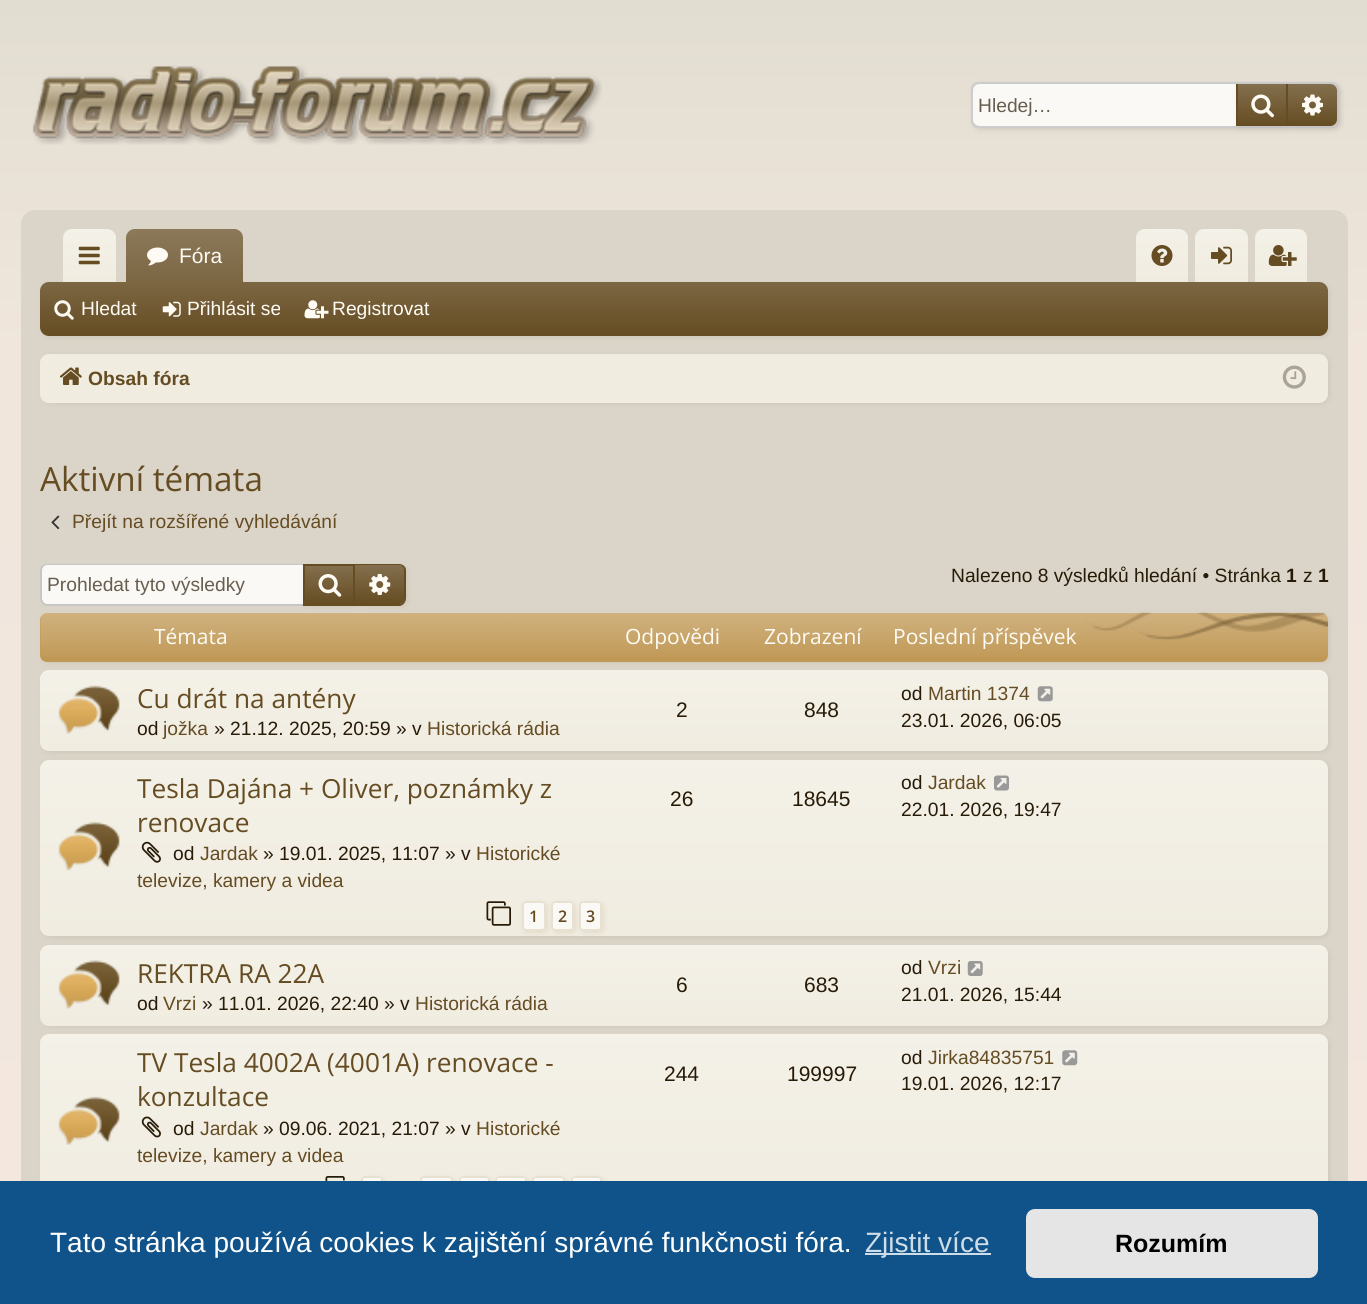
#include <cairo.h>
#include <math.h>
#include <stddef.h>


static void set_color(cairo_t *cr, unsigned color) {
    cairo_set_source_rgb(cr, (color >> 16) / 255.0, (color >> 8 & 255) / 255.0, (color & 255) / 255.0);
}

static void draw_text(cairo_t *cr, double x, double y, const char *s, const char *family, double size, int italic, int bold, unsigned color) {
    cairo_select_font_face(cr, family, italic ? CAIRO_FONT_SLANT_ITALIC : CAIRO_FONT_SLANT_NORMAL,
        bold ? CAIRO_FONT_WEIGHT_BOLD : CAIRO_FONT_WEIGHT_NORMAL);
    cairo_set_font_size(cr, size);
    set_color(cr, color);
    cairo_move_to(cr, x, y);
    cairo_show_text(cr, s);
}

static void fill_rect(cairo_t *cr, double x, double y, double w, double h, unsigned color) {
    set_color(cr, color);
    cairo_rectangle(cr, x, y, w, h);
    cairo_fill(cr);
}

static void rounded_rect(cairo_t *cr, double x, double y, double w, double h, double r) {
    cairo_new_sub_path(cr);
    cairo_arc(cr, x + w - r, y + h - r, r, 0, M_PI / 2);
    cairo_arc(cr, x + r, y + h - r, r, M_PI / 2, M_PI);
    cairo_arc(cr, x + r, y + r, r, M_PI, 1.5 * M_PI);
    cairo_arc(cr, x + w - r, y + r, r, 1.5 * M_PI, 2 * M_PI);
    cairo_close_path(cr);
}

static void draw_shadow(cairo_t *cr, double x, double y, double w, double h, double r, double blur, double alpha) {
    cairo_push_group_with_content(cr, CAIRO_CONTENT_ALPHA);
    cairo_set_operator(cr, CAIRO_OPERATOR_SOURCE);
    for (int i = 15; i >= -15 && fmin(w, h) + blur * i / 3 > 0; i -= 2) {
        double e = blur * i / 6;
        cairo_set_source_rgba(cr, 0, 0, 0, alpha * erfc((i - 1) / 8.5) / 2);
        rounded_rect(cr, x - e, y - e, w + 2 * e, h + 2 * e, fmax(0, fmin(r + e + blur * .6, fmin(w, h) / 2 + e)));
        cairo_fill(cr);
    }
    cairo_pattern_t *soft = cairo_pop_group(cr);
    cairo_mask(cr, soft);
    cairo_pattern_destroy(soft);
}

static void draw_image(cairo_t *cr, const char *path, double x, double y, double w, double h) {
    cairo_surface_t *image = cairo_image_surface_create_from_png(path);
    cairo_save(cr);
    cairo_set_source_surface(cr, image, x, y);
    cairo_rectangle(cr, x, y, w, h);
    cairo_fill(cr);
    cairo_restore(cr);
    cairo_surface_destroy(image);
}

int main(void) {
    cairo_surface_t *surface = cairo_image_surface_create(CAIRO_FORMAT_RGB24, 1367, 1304);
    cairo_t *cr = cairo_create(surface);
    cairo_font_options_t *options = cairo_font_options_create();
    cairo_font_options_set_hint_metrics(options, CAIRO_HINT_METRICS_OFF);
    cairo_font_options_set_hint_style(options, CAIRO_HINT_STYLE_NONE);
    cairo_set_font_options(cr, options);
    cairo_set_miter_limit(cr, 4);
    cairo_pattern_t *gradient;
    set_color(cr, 0xFFFFFF);
    cairo_paint(cr);
    gradient = cairo_pattern_create_linear(684, 0, 684, 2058);
    cairo_pattern_add_color_stop_rgba(gradient, 0, 0.886, 0.867, 0.82, 1);
    cairo_pattern_add_color_stop_rgba(gradient, 0.17, 0.941, 0.902, 0.863, 1);
    cairo_pattern_add_color_stop_rgba(gradient, 1, 0.965, 0.914, 0.878, 1);
    cairo_set_source(cr, gradient);
    cairo_pattern_destroy(gradient);
    cairo_rectangle(cr, 0, 0, 1367, 1181);
    cairo_fill(cr);
    draw_image(cr, "assets/img1.png", 32, 65, 570, 80);
    set_color(cr, 0x000000);
    draw_shadow(cr, 973, 84, 368, 46, 7, 2.5, 0.1);
    rounded_rect(cr, 972, 83, 366, 44, 6);
    set_color(cr, 0xCCCCCC);
    cairo_stroke(cr);
    set_color(cr, 0xFBF9F6);
    cairo_new_path(cr);
    cairo_move_to(cr, 980, 84);
    cairo_line_to(cr, 1236, 84);
    cairo_line_to(cr, 1236, 126);
    cairo_line_to(cr, 980, 126);
    cairo_curve_to(cr, 976, 126, 973, 123, 973, 119);
    cairo_line_to(cr, 973, 91);
    cairo_curve_to(cr, 973, 87, 976, 84, 980, 84);
    cairo_close_path(cr);
    cairo_fill(cr);
    draw_text(cr, 978, 112, "Hledej…", "Liberation Sans", 19.25, 0, 0, 0x675E4F);
    set_color(cr, 0x654C22);
    draw_shadow(cr, 1237, 86, 53, 42, 0, 2.5, 0.1);
    gradient = cairo_pattern_create_linear(1262, 84, 1262, 126);
    cairo_pattern_add_color_stop_rgba(gradient, 0, 0.518, 0.439, 0.306, 1);
    cairo_pattern_add_color_stop_rgba(gradient, 1, 0.396, 0.298, 0.133, 1);
    cairo_set_source(cr, gradient);
    cairo_pattern_destroy(gradient);
    cairo_rectangle(cr, 1238, 84, 48, 42);
    cairo_fill(cr);
    fill_rect(cr, 1286, 84, 2, 42, 0x654C22);
    fill_rect(cr, 1236, 84, 2, 42, 0x654C22);
    draw_image(cr, "assets/img2.png", 1251, 94, 23, 24);
    set_color(cr, 0x654C22);
    draw_shadow(cr, 1290, 86, 49, 42, 7, 2.5, 0.1);
    set_color(cr, 0x654C22);
    cairo_new_path(cr);
    cairo_move_to(cr, 1288, 84);
    cairo_line_to(cr, 1330, 84);
    cairo_curve_to(cr, 1334, 84, 1337, 87, 1337, 91);
    cairo_line_to(cr, 1337, 119);
    cairo_curve_to(cr, 1337, 123, 1334, 126, 1330, 126);
    cairo_line_to(cr, 1288, 126);
    cairo_close_path(cr);
    cairo_fill(cr);
    gradient = cairo_pattern_create_linear(1313, 84, 1313, 126);
    cairo_pattern_add_color_stop_rgba(gradient, 0, 1, 1, 1, 0.2);
    cairo_pattern_add_color_stop_rgba(gradient, 1, 1, 1, 1, 0);
    cairo_set_source(cr, gradient);
    cairo_pattern_destroy(gradient);
    cairo_new_path(cr);
    cairo_move_to(cr, 1288, 84);
    cairo_line_to(cr, 1330, 84);
    cairo_curve_to(cr, 1334, 84, 1337, 87, 1337, 91);
    cairo_line_to(cr, 1337, 119);
    cairo_curve_to(cr, 1337, 123, 1334, 126, 1330, 126);
    cairo_line_to(cr, 1288, 126);
    cairo_close_path(cr);
    cairo_fill(cr);
    draw_image(cr, "assets/img3.png", 1302, 94, 21, 22);
    set_color(cr, 0xDBD5C9);
    rounded_rect(cr, 22, 211, 1325, 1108, 13);
    cairo_fill_preserve(cr);
    cairo_stroke(cr);
    set_color(cr, 0xF0ECE0);
    cairo_new_path(cr);
    cairo_move_to(cr, 72, 229);
    cairo_line_to(cr, 107, 229);
    cairo_curve_to(cr, 112, 229, 116, 233, 116, 238);
    cairo_line_to(cr, 116, 282);
    cairo_line_to(cr, 63, 282);
    cairo_line_to(cr, 63, 238);
    cairo_curve_to(cr, 63, 233, 67, 229, 72, 229);
    cairo_close_path(cr);
    cairo_fill(cr);
    gradient = cairo_pattern_create_linear(89, 229, 89, 282);
    cairo_pattern_add_color_stop_rgba(gradient, 0, 1, 1, 1, 0.25);
    cairo_pattern_add_color_stop_rgba(gradient, 1, 1, 1, 1, 0);
    cairo_set_source(cr, gradient);
    cairo_pattern_destroy(gradient);
    cairo_new_path(cr);
    cairo_move_to(cr, 72, 229);
    cairo_line_to(cr, 107, 229);
    cairo_curve_to(cr, 112, 229, 116, 233, 116, 238);
    cairo_line_to(cr, 116, 282);
    cairo_line_to(cr, 63, 282);
    cairo_line_to(cr, 63, 238);
    cairo_curve_to(cr, 63, 233, 67, 229, 72, 229);
    cairo_close_path(cr);
    cairo_fill(cr);
    draw_image(cr, "assets/img4.png", 78, 246, 22, 19);
    set_color(cr, 0x654C22);
    cairo_new_path(cr);
    cairo_move_to(cr, 135, 229);
    cairo_line_to(cr, 234, 229);
    cairo_curve_to(cr, 239, 229, 243, 233, 243, 238);
    cairo_line_to(cr, 243, 282);
    cairo_line_to(cr, 126, 282);
    cairo_line_to(cr, 126, 238);
    cairo_curve_to(cr, 126, 233, 130, 229, 135, 229);
    cairo_close_path(cr);
    cairo_fill(cr);
    gradient = cairo_pattern_create_linear(185, 229, 185, 282);
    cairo_pattern_add_color_stop_rgba(gradient, 0, 1, 1, 1, 0.25);
    cairo_pattern_add_color_stop_rgba(gradient, 1, 1, 1, 1, 0.15);
    cairo_set_source(cr, gradient);
    cairo_pattern_destroy(gradient);
    cairo_new_path(cr);
    cairo_move_to(cr, 135, 229);
    cairo_line_to(cr, 234, 229);
    cairo_curve_to(cr, 239, 229, 243, 233, 243, 238);
    cairo_line_to(cr, 243, 282);
    cairo_line_to(cr, 126, 282);
    cairo_line_to(cr, 126, 238);
    cairo_curve_to(cr, 126, 233, 130, 229, 135, 229);
    cairo_close_path(cr);
    cairo_fill(cr);
    draw_image(cr, "assets/img5.png", 147, 247, 21, 19);
    draw_text(cr, 179, 263, "Fóra", "Liberation Sans", 21, 0, 0, 0xFEFBF5);
    set_color(cr, 0xF0ECE0);
    cairo_new_path(cr);
    cairo_move_to(cr, 1145, 229);
    cairo_line_to(cr, 1179, 229);
    cairo_curve_to(cr, 1184, 229, 1188, 233, 1188, 238);
    cairo_line_to(cr, 1188, 282);
    cairo_line_to(cr, 1136, 282);
    cairo_line_to(cr, 1136, 238);
    cairo_curve_to(cr, 1136, 233, 1140, 229, 1145, 229);
    cairo_close_path(cr);
    cairo_fill(cr);
    gradient = cairo_pattern_create_linear(1162, 229, 1162, 282);
    cairo_pattern_add_color_stop_rgba(gradient, 0, 1, 1, 1, 0.25);
    cairo_pattern_add_color_stop_rgba(gradient, 1, 1, 1, 1, 0);
    cairo_set_source(cr, gradient);
    cairo_pattern_destroy(gradient);
    cairo_new_path(cr);
    cairo_move_to(cr, 1145, 229);
    cairo_line_to(cr, 1179, 229);
    cairo_curve_to(cr, 1184, 229, 1188, 233, 1188, 238);
    cairo_line_to(cr, 1188, 282);
    cairo_line_to(cr, 1136, 282);
    cairo_line_to(cr, 1136, 238);
    cairo_curve_to(cr, 1136, 233, 1140, 229, 1145, 229);
    cairo_close_path(cr);
    cairo_fill(cr);
    set_color(cr, 0xF0ECE0);
    cairo_new_path(cr);
    cairo_move_to(cr, 1204, 229);
    cairo_line_to(cr, 1239, 229);
    cairo_curve_to(cr, 1244, 229, 1248, 233, 1248, 238);
    cairo_line_to(cr, 1248, 282);
    cairo_line_to(cr, 1195, 282);
    cairo_line_to(cr, 1195, 238);
    cairo_curve_to(cr, 1195, 233, 1199, 229, 1204, 229);
    cairo_close_path(cr);
    cairo_fill(cr);
    gradient = cairo_pattern_create_linear(1222, 229, 1222, 282);
    cairo_pattern_add_color_stop_rgba(gradient, 0, 1, 1, 1, 0.25);
    cairo_pattern_add_color_stop_rgba(gradient, 1, 1, 1, 1, 0);
    cairo_set_source(cr, gradient);
    cairo_pattern_destroy(gradient);
    cairo_new_path(cr);
    cairo_move_to(cr, 1204, 229);
    cairo_line_to(cr, 1239, 229);
    cairo_curve_to(cr, 1244, 229, 1248, 233, 1248, 238);
    cairo_line_to(cr, 1248, 282);
    cairo_line_to(cr, 1195, 282);
    cairo_line_to(cr, 1195, 238);
    cairo_curve_to(cr, 1195, 233, 1199, 229, 1204, 229);
    cairo_close_path(cr);
    cairo_fill(cr);
    set_color(cr, 0xF0ECE0);
    cairo_new_path(cr);
    cairo_move_to(cr, 1264, 229);
    cairo_line_to(cr, 1298, 229);
    cairo_curve_to(cr, 1303, 229, 1307, 233, 1307, 238);
    cairo_line_to(cr, 1307, 282);
    cairo_line_to(cr, 1255, 282);
    cairo_line_to(cr, 1255, 238);
    cairo_curve_to(cr, 1255, 233, 1259, 229, 1264, 229);
    cairo_close_path(cr);
    cairo_fill(cr);
    gradient = cairo_pattern_create_linear(1281, 229, 1281, 282);
    cairo_pattern_add_color_stop_rgba(gradient, 0, 1, 1, 1, 0.25);
    cairo_pattern_add_color_stop_rgba(gradient, 1, 1, 1, 1, 0);
    cairo_set_source(cr, gradient);
    cairo_pattern_destroy(gradient);
    cairo_new_path(cr);
    cairo_move_to(cr, 1264, 229);
    cairo_line_to(cr, 1298, 229);
    cairo_curve_to(cr, 1303, 229, 1307, 233, 1307, 238);
    cairo_line_to(cr, 1307, 282);
    cairo_line_to(cr, 1255, 282);
    cairo_line_to(cr, 1255, 238);
    cairo_curve_to(cr, 1255, 233, 1259, 229, 1264, 229);
    cairo_close_path(cr);
    cairo_fill(cr);
    set_color(cr, 0x654C22);
    draw_shadow(cr, 42, 284, 1288, 54, 9, 2.5, 0.1);
    set_color(cr, 0x654C22);
    rounded_rect(cr, 40, 282, 1288, 54, 9);
    cairo_fill(cr);
    gradient = cairo_pattern_create_linear(684, 282, 684, 336);
    cairo_pattern_add_color_stop_rgba(gradient, 0, 1, 1, 1, 0.15);
    cairo_pattern_add_color_stop_rgba(gradient, 1, 1, 1, 1, 0);
    cairo_set_source(cr, gradient);
    cairo_pattern_destroy(gradient);
    rounded_rect(cr, 40, 282, 1288, 54, 9);
    cairo_fill(cr);
    set_color(cr, 0x654C22);
    cairo_new_path(cr);
    cairo_move_to(cr, 130, 280);
    cairo_line_to(cr, 239, 280);
    cairo_curve_to(cr, 241, 280, 243, 282, 243, 284);
    cairo_line_to(cr, 126, 284);
    cairo_curve_to(cr, 126, 282, 128, 280, 130, 280);
    cairo_close_path(cr);
    cairo_fill(cr);
    cairo_set_source_rgba(cr, 1, 1, 1, 0.15);
    cairo_new_path(cr);
    cairo_move_to(cr, 130, 280);
    cairo_line_to(cr, 239, 280);
    cairo_curve_to(cr, 241, 280, 243, 282, 243, 284);
    cairo_line_to(cr, 126, 284);
    cairo_curve_to(cr, 126, 282, 128, 280, 130, 280);
    cairo_close_path(cr);
    cairo_fill(cr);
    draw_image(cr, "assets/img6.png", 1151, 245, 22, 21);
    draw_image(cr, "assets/img7.png", 1211, 246, 21, 19);
    draw_image(cr, "assets/img8.png", 1268, 245, 29, 21);
    draw_image(cr, "assets/img9.png", 54, 300, 20, 20);
    draw_text(cr, 81, 315, "Hledat", "Liberation Sans", 19.25, 0, 0, 0xFEFBF5);
    draw_image(cr, "assets/img10.png", 162, 301, 19, 16);
    draw_text(cr, 187, 315, "Přihlásit se", "Liberation Sans", 19.25, 0, 0, 0xFEFBF5);
    draw_image(cr, "assets/img11.png", 304, 300, 25, 19);
    draw_text(cr, 332, 315, "Registrovat", "Liberation Sans", 19.25, 0, 0, 0xFEFBF5);
    set_color(cr, 0x654C22);
    draw_shadow(cr, 42, 355, 1288, 49, 9, 2.5, 0.1);
    set_color(cr, 0xF0ECE0);
    rounded_rect(cr, 40, 354, 1288, 49, 9);
    cairo_fill(cr);
    draw_image(cr, "assets/img12.png", 59, 367, 23, 18);
    draw_text(cr, 88, 385, "Obsah fóra", "Liberation Sans", 19.25, 0, 1, 0x654C22);
    draw_image(cr, "assets/img13.png", 1282, 365, 24, 24);
    draw_text(cr, 40, 491, "Aktivní témata", "Open Sans", 33.25, 0, 0, 0x654C22);
    draw_image(cr, "assets/img14.png", 51, 515, 9, 15);
    draw_text(cr, 72, 528, "Přejít na rozšířené vyhledávání", "Liberation Sans", 19.25, 0, 0, 0x654C22);
    set_color(cr, 0xFBF9F6);
    cairo_new_path(cr);
    cairo_move_to(cr, 47, 565);
    cairo_line_to(cr, 303, 565);
    cairo_line_to(cr, 303, 604);
    cairo_line_to(cr, 47, 604);
    cairo_curve_to(cr, 44, 604, 42, 602, 42, 599);
    cairo_line_to(cr, 42, 570);
    cairo_curve_to(cr, 42, 567, 44, 565, 47, 565);
    cairo_close_path(cr);
    cairo_fill(cr);
    set_color(cr, 0xC6C6C6);
    cairo_set_fill_rule(cr, CAIRO_FILL_RULE_EVEN_ODD);
    cairo_new_path(cr);
    cairo_move_to(cr, 47, 564);
    cairo_line_to(cr, 303, 564);
    cairo_line_to(cr, 303, 606);
    cairo_line_to(cr, 47, 606);
    cairo_curve_to(cr, 43, 606, 40, 602, 40, 598);
    cairo_line_to(cr, 40, 570);
    cairo_curve_to(cr, 40, 567, 43, 564, 47, 564);
    cairo_close_path(cr);
    cairo_move_to(cr, 47, 565);
    cairo_line_to(cr, 303, 565);
    cairo_line_to(cr, 303, 604);
    cairo_line_to(cr, 47, 604);
    cairo_curve_to(cr, 44, 604, 42, 601, 42, 598);
    cairo_line_to(cr, 42, 570);
    cairo_curve_to(cr, 42, 568, 44, 565, 47, 565);
    cairo_close_path(cr);
    cairo_fill(cr);
    draw_text(cr, 47, 591, "Prohledat tyto výsledky", "Liberation Sans", 19.25, 0, 0, 0x675E4F);
    set_color(cr, 0x654C22);
    draw_shadow(cr, 305, 565, 52, 42, 0, 2.5, 0.1);
    gradient = cairo_pattern_create_linear(329, 565, 329, 604);
    cairo_pattern_add_color_stop_rgba(gradient, 0, 0.518, 0.439, 0.306, 1);
    cairo_pattern_add_color_stop_rgba(gradient, 1, 0.396, 0.298, 0.133, 1);
    cairo_set_source(cr, gradient);
    cairo_pattern_destroy(gradient);
    cairo_rectangle(cr, 305, 566, 48, 38);
    cairo_fill(cr);
    cairo_rectangle(cr, 304, 565, 50, 40);
    set_color(cr, 0x654C22);
    cairo_stroke(cr);
    draw_image(cr, "assets/img15.png", 318, 574, 24, 23);
    set_color(cr, 0x654C22);
    draw_shadow(cr, 357, 565, 51, 42, 7, 2.5, 0.1);
    set_color(cr, 0x654C22);
    cairo_new_path(cr);
    cairo_move_to(cr, 355, 565);
    cairo_line_to(cr, 399, 565);
    cairo_curve_to(cr, 402, 565, 404, 567, 404, 570);
    cairo_line_to(cr, 404, 599);
    cairo_curve_to(cr, 404, 602, 402, 604, 399, 604);
    cairo_line_to(cr, 355, 604);
    cairo_close_path(cr);
    cairo_fill(cr);
    gradient = cairo_pattern_create_linear(380, 565, 380, 604);
    cairo_pattern_add_color_stop_rgba(gradient, 0, 1, 1, 1, 0.2);
    cairo_pattern_add_color_stop_rgba(gradient, 1, 1, 1, 1, 0);
    cairo_set_source(cr, gradient);
    cairo_pattern_destroy(gradient);
    cairo_new_path(cr);
    cairo_move_to(cr, 355, 565);
    cairo_line_to(cr, 399, 565);
    cairo_curve_to(cr, 402, 565, 404, 567, 404, 570);
    cairo_line_to(cr, 404, 599);
    cairo_curve_to(cr, 404, 602, 402, 604, 399, 604);
    cairo_line_to(cr, 355, 604);
    cairo_close_path(cr);
    cairo_fill(cr);
    set_color(cr, 0x654C22);
    cairo_new_path(cr);
    cairo_move_to(cr, 355, 564);
    cairo_line_to(cr, 399, 564);
    cairo_curve_to(cr, 403, 564, 406, 567, 406, 570);
    cairo_line_to(cr, 406, 598);
    cairo_curve_to(cr, 406, 602, 403, 606, 399, 606);
    cairo_line_to(cr, 355, 606);
    cairo_close_path(cr);
    cairo_move_to(cr, 355, 565);
    cairo_line_to(cr, 399, 565);
    cairo_curve_to(cr, 402, 565, 404, 568, 404, 570);
    cairo_line_to(cr, 404, 598);
    cairo_curve_to(cr, 404, 601, 402, 604, 399, 604);
    cairo_line_to(cr, 355, 604);
    cairo_close_path(cr);
    cairo_fill(cr);
    draw_image(cr, "assets/img16.png", 369, 574, 22, 21);
    draw_text(cr, 951, 582, "Nalezeno 8 výsledků hledání • Stránka", "Liberation Sans", 19.25, 0, 0, 0x271B08);
    draw_text(cr, 1286, 582, "1", "Liberation Sans", 19.25, 0, 1, 0x271B08);
    draw_text(cr, 1303, 582, "z", "Liberation Sans", 19.25, 0, 0, 0x271B08);
    draw_text(cr, 1318, 582, "1", "Liberation Sans", 19.25, 0, 1, 0x271B08);
    set_color(cr, 0x654C22);
    draw_shadow(cr, 42, 672, 1288, 81, 9, 2.5, 0.1);
    set_color(cr, 0xF0ECE0);
    rounded_rect(cr, 40, 670, 1288, 81, 9);
    cairo_fill(cr);
    gradient = cairo_pattern_create_linear(684, 670, 684, 751);
    cairo_pattern_add_color_stop_rgba(gradient, 0, 1, 1, 1, 0.25);
    cairo_pattern_add_color_stop_rgba(gradient, 1, 1, 1, 1, 0);
    cairo_set_source(cr, gradient);
    cairo_pattern_destroy(gradient);
    rounded_rect(cr, 40, 670, 1288, 81, 9);
    cairo_fill(cr);
    set_color(cr, 0x654C22);
    draw_shadow(cr, 42, 614, 1288, 49, 7, 2.5, 0.1);
    set_color(cr, 0xC09855);
    rounded_rect(cr, 40, 613, 1288, 49, 7);
    cairo_fill(cr);
    draw_image(cr, "assets/img17.png", 40, 612, 1289, 45);
    draw_text(cr, 154, 644, "Témata", "Open Sans", 21, 0, 0, 0xFEFBF5);
    draw_text(cr, 625, 644, "Odpovědi", "Open Sans", 21, 0, 0, 0xFEFBF5);
    draw_text(cr, 764, 644, "Zobrazení", "Open Sans", 21, 0, 0, 0xFEFBF5);
    draw_text(cr, 893, 644, "Poslední příspěvek", "Open Sans", 21, 0, 0, 0xFEFBF5);
    draw_image(cr, "assets/img18.png", 58, 685, 62, 49);
    draw_text(cr, 137, 708, "Cu drát na antény", "Open Sans", 26.25, 0, 0, 0x654C22);
    draw_text(cr, 137, 735, "od", "Liberation Sans", 19.25, 0, 0, 0x271B08);
    draw_text(cr, 163, 735, "jožka", "Liberation Sans", 19.25, 0, 0, 0x654C22);
    draw_text(cr, 214, 735, "» 21.12. 2025, 20:59 » v", "Liberation Sans", 19.25, 0, 0, 0x271B08);
    draw_text(cr, 427, 735, "Historická rádia", "Liberation Sans", 19.25, 0, 0, 0x654C22);
    draw_text(cr, 676, 717, "2", "Liberation Sans", 21, 0, 0, 0x271B08);
    draw_text(cr, 804, 717, "848", "Liberation Sans", 21, 0, 0, 0x271B08);
    draw_text(cr, 901, 700, "od", "Liberation Sans", 19.25, 0, 0, 0x271B08);
    draw_text(cr, 928, 700, "Martin 1374", "Liberation Sans", 19.25, 0, 0, 0x654C22);
    draw_image(cr, "assets/img19.png", 1037, 686, 16, 16);
    draw_text(cr, 901, 727, "23.01. 2026, 06:05", "Liberation Sans", 19.25, 0, 0, 0x271B08);
    set_color(cr, 0x654C22);
    draw_shadow(cr, 42, 761, 1288, 177, 9, 2.5, 0.1);
    set_color(cr, 0xF0ECE0);
    rounded_rect(cr, 40, 760, 1288, 176, 9);
    cairo_fill(cr);
    gradient = cairo_pattern_create_linear(684, 759, 684, 936);
    cairo_pattern_add_color_stop_rgba(gradient, 0, 1, 1, 1, 0.25);
    cairo_pattern_add_color_stop_rgba(gradient, 1, 1, 1, 1, 0);
    cairo_set_source(cr, gradient);
    cairo_pattern_destroy(gradient);
    rounded_rect(cr, 40, 760, 1288, 176, 9);
    cairo_fill(cr);
    draw_image(cr, "assets/img20.png", 58, 822, 62, 49);
    draw_text(cr, 137, 798, "Tesla Dajána + Oliver, poznámky z", "Open Sans", 26.25, 0, 0, 0x654C22);
    draw_text(cr, 137, 832, "renovace", "Open Sans", 26.25, 0, 0, 0x654C22);
    draw_image(cr, "assets/img21.png", 141, 841, 20, 22);
    draw_text(cr, 173, 860, "od", "Liberation Sans", 19.25, 0, 0, 0x271B08);
    draw_text(cr, 200, 860, "Jardak", "Liberation Sans", 19.25, 0, 0, 0x654C22);
    draw_text(cr, 263, 860, "» 19.01. 2025, 11:07 » v", "Liberation Sans", 19.25, 0, 0, 0x271B08);
    draw_text(cr, 476, 860, "Historické", "Liberation Sans", 19.25, 0, 0, 0x654C22);
    draw_text(cr, 137, 887, "televize, kamery a videa", "Liberation Sans", 19.25, 0, 0, 0x654C22);
    draw_image(cr, "assets/img22.png", 486, 901, 25, 25);
    set_color(cr, 0x654C22);
    draw_shadow(cr, 523, 903, 25, 30, 4, 2.5, 0.1);
    set_color(cr, 0xFBF9F6);
    rounded_rect(cr, 522, 901, 24, 30, 4);
    cairo_fill(cr);
    gradient = cairo_pattern_create_linear(534, 903, 534, 929);
    cairo_pattern_add_color_stop_rgba(gradient, 0, 1, 1, 1, 0.2);
    cairo_pattern_add_color_stop_rgba(gradient, 1, 1, 1, 1, 0);
    cairo_set_source(cr, gradient);
    cairo_pattern_destroy(gradient);
    cairo_rectangle(cr, 522, 903, 24, 1);
    cairo_fill(cr);
    rounded_rect(cr, 523, 902, 22, 28, 3);
    set_color(cr, 0xE8E1CF);
    cairo_stroke(cr);
    draw_text(cr, 529, 922, "1", "Open Sans SemiBold", 16, 0, 0, 0x654C22);
    set_color(cr, 0x654C22);
    draw_shadow(cr, 553, 903, 23, 30, 4, 2.5, 0.1);
    set_color(cr, 0xFBF9F6);
    rounded_rect(cr, 551, 901, 23, 30, 4);
    cairo_fill(cr);
    gradient = cairo_pattern_create_linear(563, 903, 563, 929);
    cairo_pattern_add_color_stop_rgba(gradient, 0, 1, 1, 1, 0.2);
    cairo_pattern_add_color_stop_rgba(gradient, 1, 1, 1, 1, 0);
    cairo_set_source(cr, gradient);
    cairo_pattern_destroy(gradient);
    cairo_rectangle(cr, 551, 903, 23, 1);
    cairo_fill(cr);
    rounded_rect(cr, 552, 902, 21, 28, 3);
    set_color(cr, 0xE8E1CF);
    cairo_stroke(cr);
    draw_text(cr, 558, 922, "2", "Open Sans SemiBold", 16, 0, 0, 0x654C22);
    set_color(cr, 0x654C22);
    draw_shadow(cr, 581, 903, 23, 30, 4, 2.5, 0.1);
    set_color(cr, 0xFBF9F6);
    rounded_rect(cr, 579, 901, 23, 30, 4);
    cairo_fill(cr);
    gradient = cairo_pattern_create_linear(591, 903, 591, 929);
    cairo_pattern_add_color_stop_rgba(gradient, 0, 1, 1, 1, 0.2);
    cairo_pattern_add_color_stop_rgba(gradient, 1, 1, 1, 1, 0);
    cairo_set_source(cr, gradient);
    cairo_pattern_destroy(gradient);
    cairo_rectangle(cr, 579, 903, 23, 1);
    cairo_fill(cr);
    rounded_rect(cr, 580, 902, 21, 28, 3);
    set_color(cr, 0xE8E1CF);
    cairo_stroke(cr);
    draw_text(cr, 586, 922, "3", "Open Sans SemiBold", 16, 0, 0, 0x654C22);
    draw_text(cr, 670, 806, "26", "Liberation Sans", 21, 0, 0, 0x271B08);
    draw_text(cr, 792, 806, "18645", "Liberation Sans", 21, 0, 0, 0x271B08);
    draw_text(cr, 901, 789, "od", "Liberation Sans", 19.25, 0, 0, 0x271B08);
    draw_text(cr, 928, 789, "Jardak", "Liberation Sans", 19.25, 0, 0, 0x654C22);
    draw_image(cr, "assets/img23.png", 994, 775, 15, 16);
    draw_text(cr, 901, 816, "22.01. 2026, 19:47", "Liberation Sans", 19.25, 0, 0, 0x271B08);
    set_color(cr, 0x654C22);
    draw_shadow(cr, 42, 947, 1288, 80, 9, 2.5, 0.1);
    set_color(cr, 0xF0ECE0);
    rounded_rect(cr, 40, 945, 1288, 81, 9);
    cairo_fill(cr);
    gradient = cairo_pattern_create_linear(684, 945, 684, 1026);
    cairo_pattern_add_color_stop_rgba(gradient, 0, 1, 1, 1, 0.25);
    cairo_pattern_add_color_stop_rgba(gradient, 1, 1, 1, 1, 0);
    cairo_set_source(cr, gradient);
    cairo_pattern_destroy(gradient);
    rounded_rect(cr, 40, 945, 1288, 81, 9);
    cairo_fill(cr);
    draw_image(cr, "assets/img24.png", 58, 960, 62, 49);
    draw_text(cr, 137, 983, "REKTRA RA 22A", "Open Sans", 26.25, 0, 0, 0x654C22);
    draw_text(cr, 137, 1010, "od", "Liberation Sans", 19.25, 0, 0, 0x271B08);
    draw_text(cr, 163, 1010, "Vrzi", "Liberation Sans", 19.25, 0, 0, 0x654C22);
    draw_text(cr, 202, 1010, "» 11.01. 2026, 22:40 » v", "Liberation Sans", 19.25, 0, 0, 0x271B08);
    draw_text(cr, 415, 1010, "Historická rádia", "Liberation Sans", 19.25, 0, 0, 0x654C22);
    draw_text(cr, 676, 992, "6", "Liberation Sans", 21, 0, 0, 0x271B08);
    draw_text(cr, 804, 992, "683", "Liberation Sans", 21, 0, 0, 0x271B08);
    draw_text(cr, 901, 974, "od", "Liberation Sans", 19.25, 0, 0, 0x271B08);
    draw_text(cr, 928, 974, "Vrzi", "Liberation Sans", 19.25, 0, 0, 0x654C22);
    draw_image(cr, "assets/img25.png", 967, 961, 16, 15);
    draw_text(cr, 901, 1001, "21.01. 2026, 15:44", "Liberation Sans", 19.25, 0, 0, 0x271B08);
    set_color(cr, 0x654C22);
    draw_shadow(cr, 42, 1036, 1288, 177, 9, 2.5, 0.1);
    set_color(cr, 0xF0ECE0);
    rounded_rect(cr, 40, 1034, 1288, 177, 9);
    cairo_fill(cr);
    gradient = cairo_pattern_create_linear(684, 1034, 684, 1211);
    cairo_pattern_add_color_stop_rgba(gradient, 0, 1, 1, 1, 0.25);
    cairo_pattern_add_color_stop_rgba(gradient, 1, 1, 1, 1, 0);
    cairo_set_source(cr, gradient);
    cairo_pattern_destroy(gradient);
    rounded_rect(cr, 40, 1034, 1288, 177, 9);
    cairo_fill(cr);
    draw_image(cr, "assets/img26.png", 58, 1096, 62, 49);
    draw_text(cr, 137, 1072, "TV Tesla 4002A (4001A) renovace -", "Open Sans", 26.25, 0, 0, 0x654C22);
    draw_text(cr, 137, 1106, "konzultace", "Open Sans", 26.25, 0, 0, 0x654C22);
    draw_image(cr, "assets/img27.png", 141, 1116, 20, 22);
    draw_text(cr, 173, 1135, "od", "Liberation Sans", 19.25, 0, 0, 0x271B08);
    draw_text(cr, 200, 1135, "Jardak", "Liberation Sans", 19.25, 0, 0, 0x654C22);
    draw_text(cr, 263, 1135, "» 09.06. 2021, 21:07 » v", "Liberation Sans", 19.25, 0, 0, 0x271B08);
    draw_text(cr, 476, 1135, "Historické", "Liberation Sans", 19.25, 0, 0, 0x654C22);
    draw_text(cr, 137, 1162, "televize, kamery a videa", "Liberation Sans", 19.25, 0, 0, 0x654C22);
    draw_image(cr, "assets/img28.png", 325, 1176, 20, 5);
    set_color(cr, 0x654C22);
    draw_shadow(cr, 362, 1178, 23, 30, 4, 2.5, 0.1);
    set_color(cr, 0xFBF9F6);
    rounded_rect(cr, 361, 1176, 22, 30, 4);
    cairo_fill(cr);
    gradient = cairo_pattern_create_linear(372, 1178, 372, 1204);
    cairo_pattern_add_color_stop_rgba(gradient, 0, 1, 1, 1, 0.2);
    cairo_pattern_add_color_stop_rgba(gradient, 1, 1, 1, 1, 0);
    cairo_set_source(cr, gradient);
    cairo_pattern_destroy(gradient);
    cairo_rectangle(cr, 361, 1178, 22, 1);
    cairo_fill(cr);
    rounded_rect(cr, 362, 1177, 20, 28, 3);
    set_color(cr, 0xE8E1CF);
    cairo_stroke(cr);
    set_color(cr, 0x654C22);
    draw_shadow(cr, 422, 1178, 33, 30, 4, 2.5, 0.1);
    set_color(cr, 0xFBF9F6);
    rounded_rect(cr, 420, 1176, 33, 30, 4);
    cairo_fill(cr);
    gradient = cairo_pattern_create_linear(437, 1178, 437, 1204);
    cairo_pattern_add_color_stop_rgba(gradient, 0, 1, 1, 1, 0.2);
    cairo_pattern_add_color_stop_rgba(gradient, 1, 1, 1, 1, 0);
    cairo_set_source(cr, gradient);
    cairo_pattern_destroy(gradient);
    cairo_rectangle(cr, 420, 1178, 33, 1);
    cairo_fill(cr);
    rounded_rect(cr, 421, 1177, 31, 28, 3);
    set_color(cr, 0xE8E1CF);
    cairo_stroke(cr);
    set_color(cr, 0x654C22);
    draw_shadow(cr, 460, 1178, 32, 30, 4, 2.5, 0.1);
    set_color(cr, 0xFBF9F6);
    rounded_rect(cr, 459, 1176, 31, 30, 4);
    cairo_fill(cr);
    gradient = cairo_pattern_create_linear(474, 1178, 474, 1204);
    cairo_pattern_add_color_stop_rgba(gradient, 0, 1, 1, 1, 0.2);
    cairo_pattern_add_color_stop_rgba(gradient, 1, 1, 1, 1, 0);
    cairo_set_source(cr, gradient);
    cairo_pattern_destroy(gradient);
    cairo_rectangle(cr, 459, 1178, 31, 1);
    cairo_fill(cr);
    rounded_rect(cr, 460, 1177, 29, 28, 3);
    set_color(cr, 0xE8E1CF);
    cairo_stroke(cr);
    set_color(cr, 0x654C22);
    draw_shadow(cr, 497, 1178, 32, 30, 4, 2.5, 0.1);
    set_color(cr, 0xFBF9F6);
    rounded_rect(cr, 495, 1176, 32, 30, 4);
    cairo_fill(cr);
    gradient = cairo_pattern_create_linear(511, 1178, 511, 1204);
    cairo_pattern_add_color_stop_rgba(gradient, 0, 1, 1, 1, 0.2);
    cairo_pattern_add_color_stop_rgba(gradient, 1, 1, 1, 1, 0);
    cairo_set_source(cr, gradient);
    cairo_pattern_destroy(gradient);
    cairo_rectangle(cr, 495, 1178, 32, 1);
    cairo_fill(cr);
    rounded_rect(cr, 496, 1177, 30, 28, 3);
    set_color(cr, 0xE8E1CF);
    cairo_stroke(cr);
    set_color(cr, 0x654C22);
    draw_shadow(cr, 534, 1178, 33, 30, 4, 2.5, 0.1);
    set_color(cr, 0xFBF9F6);
    rounded_rect(cr, 532, 1176, 33, 30, 4);
    cairo_fill(cr);
    gradient = cairo_pattern_create_linear(549, 1178, 549, 1204);
    cairo_pattern_add_color_stop_rgba(gradient, 0, 1, 1, 1, 0.2);
    cairo_pattern_add_color_stop_rgba(gradient, 1, 1, 1, 1, 0);
    cairo_set_source(cr, gradient);
    cairo_pattern_destroy(gradient);
    cairo_rectangle(cr, 532, 1178, 33, 1);
    cairo_fill(cr);
    rounded_rect(cr, 533, 1177, 31, 28, 3);
    set_color(cr, 0xE8E1CF);
    cairo_stroke(cr);
    set_color(cr, 0x654C22);
    draw_shadow(cr, 572, 1178, 32, 30, 4, 2.5, 0.1);
    set_color(cr, 0xFBF9F6);
    rounded_rect(cr, 571, 1176, 31, 30, 4);
    cairo_fill(cr);
    gradient = cairo_pattern_create_linear(586, 1178, 586, 1204);
    cairo_pattern_add_color_stop_rgba(gradient, 0, 1, 1, 1, 0.2);
    cairo_pattern_add_color_stop_rgba(gradient, 1, 1, 1, 1, 0);
    cairo_set_source(cr, gradient);
    cairo_pattern_destroy(gradient);
    cairo_rectangle(cr, 571, 1178, 31, 1);
    cairo_fill(cr);
    rounded_rect(cr, 572, 1177, 29, 28, 3);
    set_color(cr, 0xE8E1CF);
    cairo_stroke(cr);
    draw_text(cr, 664, 1081, "244", "Liberation Sans", 21, 0, 0, 0x271B08);
    draw_text(cr, 787, 1081, "199997", "Liberation Sans", 21, 0, 0, 0x271B08);
    draw_text(cr, 901, 1064, "od", "Liberation Sans", 19.25, 0, 0, 0x271B08);
    draw_text(cr, 928, 1064, "Jirka84835751", "Liberation Sans", 19.25, 0, 0, 0x654C22);
    draw_image(cr, "assets/img29.png", 1062, 1050, 16, 16);
    draw_text(cr, 901, 1090, "19.01. 2026, 12:17", "Liberation Sans", 19.25, 0, 0, 0x271B08);
    fill_rect(cr, 0, 1181, 1367, 123, 0x0F538A);
    draw_text(cr, 50, 1252, "Tato stránka používá cookies k zajištění správné funkčnosti fóra.", "Liberation Sans", 28, 0, 0, 0xFFFFFF);
    fill_rect(cr, 865, 1253, 126, 2, 0xCFDDE8);
    draw_text(cr, 865, 1252, "Zjistit více", "Liberation Sans", 28, 0, 0, 0xCFDDE8);
    set_color(cr, 0xE5E5E5);
    rounded_rect(cr, 1026, 1209, 292, 69, 9);
    cairo_fill(cr);
    draw_text(cr, 1115, 1252, "Rozumím", "Liberation Sans", 25, 0, 1, 0x000000);
    cairo_surface_write_to_png(surface, "output.png");
    cairo_font_options_destroy(options);
    cairo_destroy(cr);
    cairo_surface_destroy(surface);
    return 0;
}
